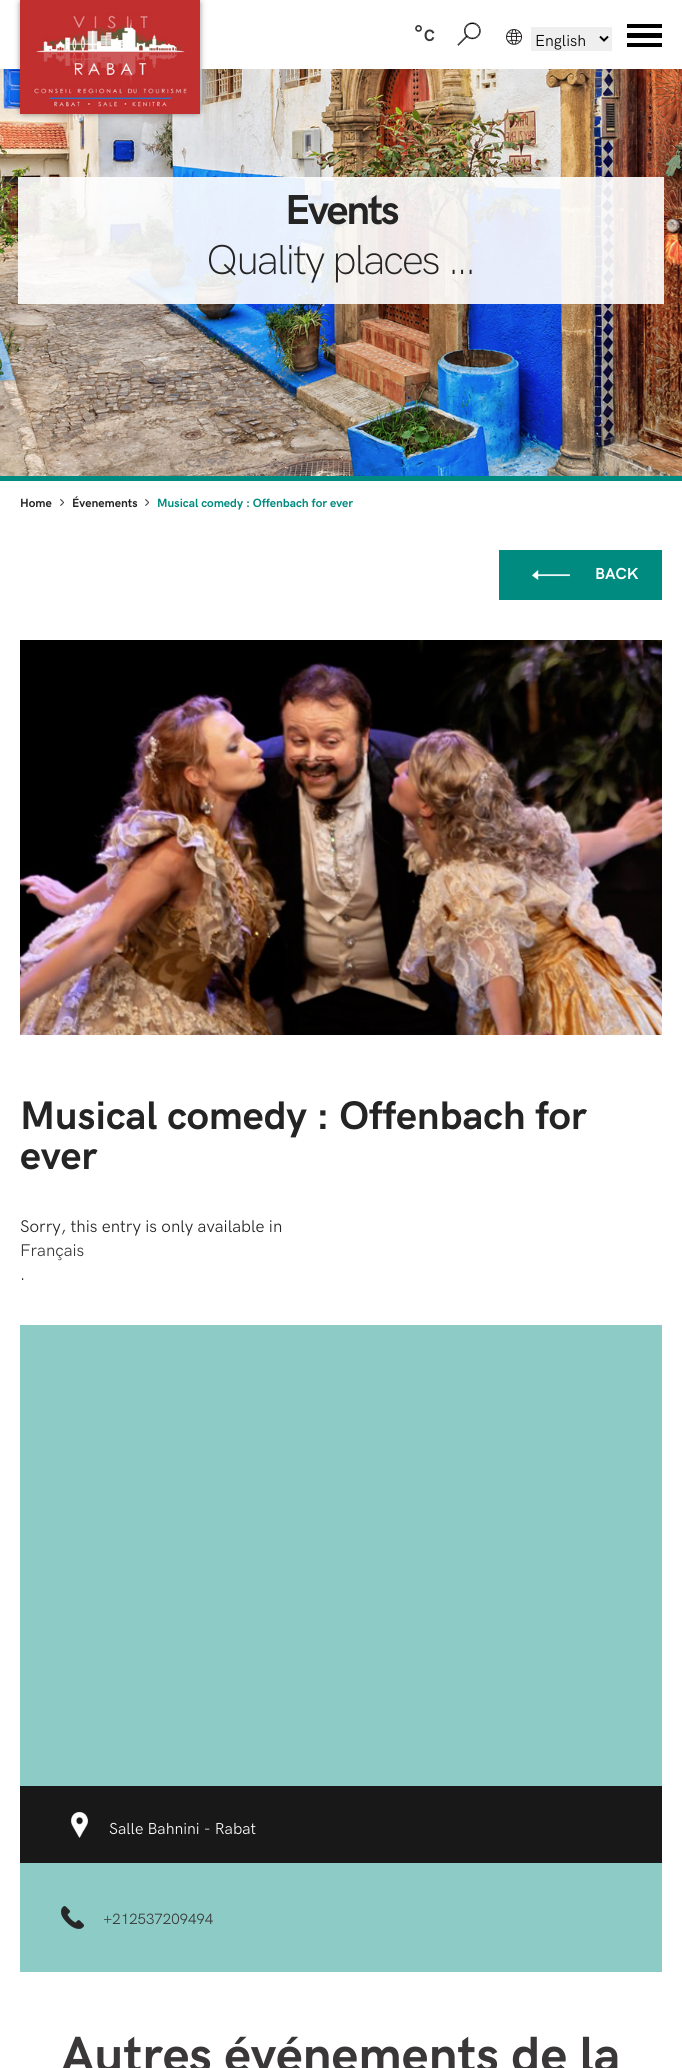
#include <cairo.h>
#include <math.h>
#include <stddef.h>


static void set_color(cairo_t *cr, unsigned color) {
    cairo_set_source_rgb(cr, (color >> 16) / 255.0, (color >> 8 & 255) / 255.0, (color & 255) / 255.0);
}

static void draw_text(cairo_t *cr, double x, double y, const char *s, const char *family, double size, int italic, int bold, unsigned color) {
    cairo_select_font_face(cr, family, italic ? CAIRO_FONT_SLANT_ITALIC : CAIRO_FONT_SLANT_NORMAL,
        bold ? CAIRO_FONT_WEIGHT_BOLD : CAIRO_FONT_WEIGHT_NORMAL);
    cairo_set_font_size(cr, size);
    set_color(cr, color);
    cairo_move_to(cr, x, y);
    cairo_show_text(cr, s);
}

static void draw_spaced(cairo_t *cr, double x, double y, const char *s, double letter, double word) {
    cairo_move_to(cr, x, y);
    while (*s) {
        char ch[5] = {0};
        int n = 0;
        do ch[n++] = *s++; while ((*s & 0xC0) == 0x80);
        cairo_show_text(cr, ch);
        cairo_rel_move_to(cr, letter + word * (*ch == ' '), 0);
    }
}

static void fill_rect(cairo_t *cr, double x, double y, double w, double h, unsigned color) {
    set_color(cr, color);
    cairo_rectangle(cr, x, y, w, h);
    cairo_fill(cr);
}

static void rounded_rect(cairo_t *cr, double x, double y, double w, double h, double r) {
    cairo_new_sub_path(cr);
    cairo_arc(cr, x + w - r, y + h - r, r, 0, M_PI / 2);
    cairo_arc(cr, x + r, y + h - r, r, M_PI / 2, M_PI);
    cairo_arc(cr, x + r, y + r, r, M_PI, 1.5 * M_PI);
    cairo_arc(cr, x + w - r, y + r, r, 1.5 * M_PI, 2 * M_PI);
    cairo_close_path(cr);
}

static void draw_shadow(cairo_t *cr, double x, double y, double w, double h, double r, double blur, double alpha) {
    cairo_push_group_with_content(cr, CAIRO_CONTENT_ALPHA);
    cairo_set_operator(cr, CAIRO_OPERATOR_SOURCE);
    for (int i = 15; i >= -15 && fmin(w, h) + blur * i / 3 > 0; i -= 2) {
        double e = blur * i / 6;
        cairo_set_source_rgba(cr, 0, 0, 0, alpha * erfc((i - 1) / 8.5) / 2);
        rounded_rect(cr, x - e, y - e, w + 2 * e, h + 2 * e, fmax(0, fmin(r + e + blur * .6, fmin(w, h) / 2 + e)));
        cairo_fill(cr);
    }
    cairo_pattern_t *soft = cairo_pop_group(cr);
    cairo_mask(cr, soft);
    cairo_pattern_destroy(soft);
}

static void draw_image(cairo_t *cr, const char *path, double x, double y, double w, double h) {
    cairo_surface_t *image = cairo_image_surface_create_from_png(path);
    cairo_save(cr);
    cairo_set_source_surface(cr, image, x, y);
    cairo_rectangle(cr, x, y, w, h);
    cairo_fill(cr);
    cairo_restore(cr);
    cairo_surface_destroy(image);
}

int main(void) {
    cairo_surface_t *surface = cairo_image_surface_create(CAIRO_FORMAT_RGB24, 682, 2068);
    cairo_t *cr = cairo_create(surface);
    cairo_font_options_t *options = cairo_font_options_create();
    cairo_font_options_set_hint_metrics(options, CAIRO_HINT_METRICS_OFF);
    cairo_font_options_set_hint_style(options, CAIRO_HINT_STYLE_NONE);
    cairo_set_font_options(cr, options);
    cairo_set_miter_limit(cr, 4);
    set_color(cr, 0xFFFFFF);
    cairo_paint(cr);
    draw_image(cr, "assets/img4.png", 0, 69, 682, 407);
    set_color(cr, 0x000000);
    draw_shadow(cr, 23, 3, 174, 108, 0, 4, 1);
    draw_image(cr, "assets/img1.png", 20, 0, 180, 114);
    draw_text(cr, 413, 41, "°c", "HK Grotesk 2", 22, 0, 1, 0x393737);
    draw_image(cr, "assets/img2.png", 457, 22, 24, 24);
    draw_image(cr, "assets/img3.png", 506, 29, 16, 16);
    fill_rect(cr, 531, 27, 81, 24, 0xEFEFEF);
    cairo_new_path(cr);
    cairo_move_to(cr, 600, 36.5);
    cairo_line_to(cr, 604, 40.5);
    cairo_line_to(cr, 608, 36.5);
    set_color(cr, 0x000000);
    cairo_stroke(cr);
    draw_text(cr, 535, 46, "English", "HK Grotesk", 16, 0, 0, 0x000000);
    fill_rect(cr, 627, 24, 35, 4, 0x000000);
    fill_rect(cr, 627, 43, 35, 4, 0x000000);
    fill_rect(cr, 627, 33, 35, 5, 0x000000);
    fill_rect(cr, 0, 476, 682, 5, 0x008B80);
    cairo_set_source_rgba(cr, 1, 1, 1, 0.9);
    cairo_rectangle(cr, 18, 177, 646, 127);
    cairo_fill(cr);
    cairo_select_font_face(cr, "HK Grotesk", CAIRO_FONT_SLANT_NORMAL, CAIRO_FONT_WEIGHT_BOLD);
    cairo_set_font_size(cr, 42);
    set_color(cr, 0x252424);
    draw_spaced(cr, 285, 224, "Events", -2.25, 0);
    cairo_select_font_face(cr, "HK Grotesk Light", CAIRO_FONT_SLANT_NORMAL, CAIRO_FONT_WEIGHT_NORMAL);
    draw_spaced(cr, 206, 274, "Quality places …", -2.25, 0);
    draw_text(cr, 20, 507, "Home", "HK Grotesk", 12, 0, 1, 0x252424);
    draw_image(cr, "assets/img5.png", 60, 499, 4, 7);
    draw_text(cr, 72, 507, "Évenements", "HK Grotesk", 12, 0, 1, 0x252424);
    draw_image(cr, "assets/img5.png", 145, 499, 4, 7);
    draw_text(cr, 157, 507, "Musical comedy : Offenbach for ever", "HK Grotesk", 12, 0, 1, 0x008B80);
    fill_rect(cr, 499, 550, 163, 50, 0x008B80);
    draw_image(cr, "assets/img6.png", 532, 570, 38, 10);
    draw_text(cr, 595, 579, "BACK", "HK Grotesk", 16, 0, 1, 0xFEFEFE);
    draw_image(cr, "assets/img7.png", 20, 640, 642, 395);
    draw_text(cr, 20, 1129, "Musical comedy : Offenbach for", "HK Grotesk", 40, 0, 1, 0x252424);
    draw_text(cr, 20, 1169, "ever", "HK Grotesk", 40, 0, 1, 0x252424);
    draw_text(cr, 20, 1232, "Sorry, this entry is only available in", "HK Grotesk", 17, 0, 0, 0x252424);
    draw_text(cr, 20, 1256, "Français", "HK Grotesk", 17, 0, 0, 0x393737);
    draw_text(cr, 20, 1280, ".", "HK Grotesk", 17, 0, 0, 0x252424);
    fill_rect(cr, 20, 1325, 642, 647, 0x8CCBC6);
    fill_rect(cr, 20, 1786, 642, 77, 0x181818);
    draw_image(cr, "assets/img8.png", 71, 1812, 17, 26);
    draw_text(cr, 109, 1834, "Salle Bahnini - Rabat", "HK Grotesk", 16, 0, 0, 0xFEFEFE);
    draw_image(cr, "assets/img9.png", 61, 1906, 23, 23);
    draw_text(cr, 103, 1924, "+212537209494", "HK Grotesk", 15, 0, 0, 0x393737);
    draw_text(cr, 61, 2072, "Autres événements de la", "HK Grotesk", 51.1, 0, 1, 0x393737);
    cairo_surface_write_to_png(surface, "output.png");
    cairo_font_options_destroy(options);
    cairo_destroy(cr);
    cairo_surface_destroy(surface);
    return 0;
}
